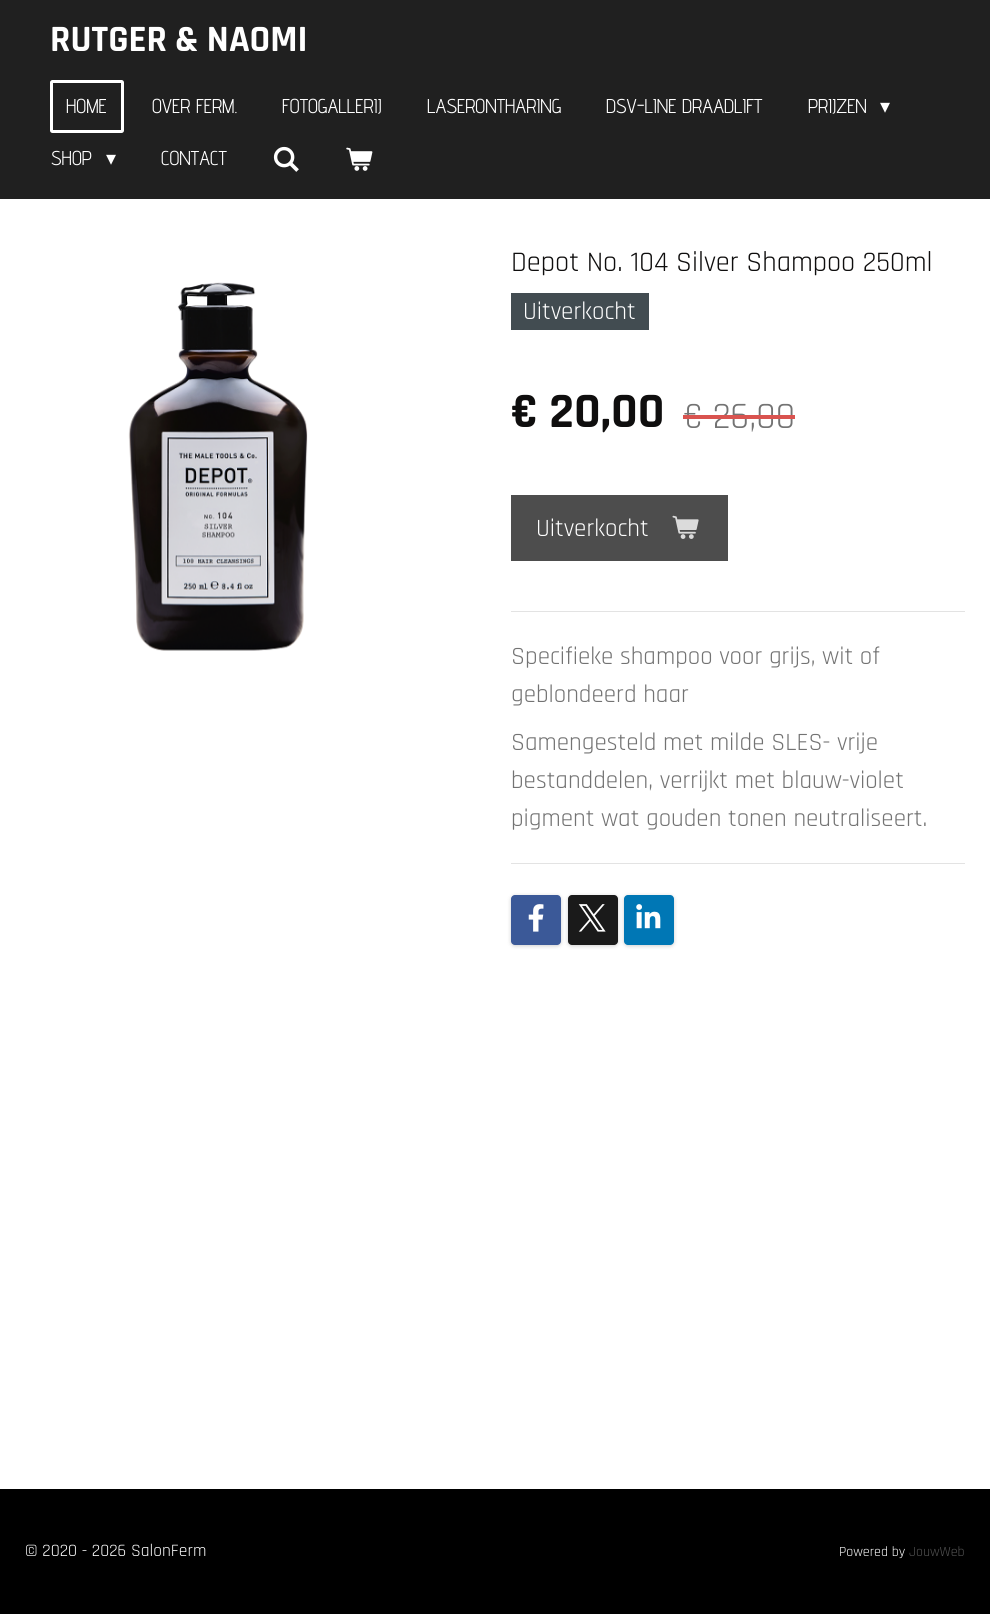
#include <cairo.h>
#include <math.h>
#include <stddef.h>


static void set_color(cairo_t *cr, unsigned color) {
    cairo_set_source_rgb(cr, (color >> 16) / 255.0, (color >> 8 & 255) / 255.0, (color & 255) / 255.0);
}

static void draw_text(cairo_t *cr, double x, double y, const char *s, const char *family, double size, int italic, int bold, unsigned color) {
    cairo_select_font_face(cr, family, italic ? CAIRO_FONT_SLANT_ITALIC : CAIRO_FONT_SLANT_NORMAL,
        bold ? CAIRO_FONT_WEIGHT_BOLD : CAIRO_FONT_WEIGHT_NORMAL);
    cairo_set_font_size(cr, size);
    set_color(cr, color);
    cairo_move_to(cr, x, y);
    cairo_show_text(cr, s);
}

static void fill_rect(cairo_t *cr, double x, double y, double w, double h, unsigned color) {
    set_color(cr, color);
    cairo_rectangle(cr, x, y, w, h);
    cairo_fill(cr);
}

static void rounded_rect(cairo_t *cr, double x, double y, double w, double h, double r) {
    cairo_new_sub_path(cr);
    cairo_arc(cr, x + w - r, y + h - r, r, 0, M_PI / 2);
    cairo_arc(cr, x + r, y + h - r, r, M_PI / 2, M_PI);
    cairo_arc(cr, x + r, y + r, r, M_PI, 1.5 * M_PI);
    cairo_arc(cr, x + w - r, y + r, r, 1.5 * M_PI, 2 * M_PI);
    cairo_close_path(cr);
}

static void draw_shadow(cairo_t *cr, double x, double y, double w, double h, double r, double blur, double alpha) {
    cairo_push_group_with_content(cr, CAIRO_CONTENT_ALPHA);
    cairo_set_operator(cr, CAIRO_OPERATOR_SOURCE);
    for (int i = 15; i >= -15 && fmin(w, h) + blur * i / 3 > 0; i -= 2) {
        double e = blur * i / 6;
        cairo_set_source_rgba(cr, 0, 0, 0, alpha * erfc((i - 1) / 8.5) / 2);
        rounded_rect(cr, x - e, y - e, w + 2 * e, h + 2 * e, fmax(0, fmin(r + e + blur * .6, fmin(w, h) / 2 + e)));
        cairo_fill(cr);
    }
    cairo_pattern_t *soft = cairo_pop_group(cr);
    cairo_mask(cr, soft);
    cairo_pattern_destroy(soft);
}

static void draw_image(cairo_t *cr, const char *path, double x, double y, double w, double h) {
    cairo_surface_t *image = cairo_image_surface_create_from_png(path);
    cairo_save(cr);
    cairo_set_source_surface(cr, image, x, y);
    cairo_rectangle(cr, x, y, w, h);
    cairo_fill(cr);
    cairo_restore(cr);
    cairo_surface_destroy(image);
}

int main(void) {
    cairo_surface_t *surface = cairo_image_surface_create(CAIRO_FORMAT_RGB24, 990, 1614);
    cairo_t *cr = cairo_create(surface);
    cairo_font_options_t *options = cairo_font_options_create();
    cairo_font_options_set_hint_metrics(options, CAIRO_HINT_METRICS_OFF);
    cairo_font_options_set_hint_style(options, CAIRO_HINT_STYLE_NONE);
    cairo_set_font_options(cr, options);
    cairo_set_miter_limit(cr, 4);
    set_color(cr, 0xFFFFFF);
    cairo_paint(cr);
    fill_rect(cr, 0, 0, 990, 199, 0x202020);
    draw_text(cr, 50, 51, "RUTGER & NAOMI", "Rajdhani", 37.5, 0, 1, 0xFFFFFF);
    rounded_rect(cr, 51.5, 81.5, 71, 50, 1);
    cairo_set_line_width(cr, 3);
    cairo_stroke(cr);
    draw_text(cr, 66, 113, "HOME", "Advent Pro", 20, 0, 0, 0xFFFFFF);
    draw_text(cr, 152, 113, "OVER FERM.", "Advent Pro", 20, 0, 0, 0xFFFFFF);
    draw_text(cr, 282, 113, "FOTOGALLERIJ", "Advent Pro", 20, 0, 0, 0xFFFFFF);
    draw_text(cr, 427, 113, "LASERONTHARING", "Advent Pro", 20, 0, 0, 0xFFFFFF);
    draw_text(cr, 606, 113, "DSV-LINE DRAADLIFT", "Advent Pro", 20, 0, 0, 0xFFFFFF);
    draw_text(cr, 808, 113, "PRIJZEN", "Advent Pro", 20, 0, 0, 0xFFFFFF);
    draw_text(cr, 880, 113, "▾", "DejaVu Sans", 20, 0, 0, 0xFFFFFF);
    draw_text(cr, 51, 165, "SHOP", "Advent Pro", 20, 0, 0, 0xFFFFFF);
    draw_text(cr, 106, 165, "▾", "DejaVu Sans", 20, 0, 0, 0xFFFFFF);
    draw_text(cr, 161, 165, "CONTACT", "Advent Pro", 20, 0, 0, 0xFFFFFF);
    draw_image(cr, "assets/img1.png", 273, 146, 26, 26);
    draw_image(cr, "assets/img2.png", 346, 147, 27, 24);
    draw_image(cr, "assets/img3.png", 128, 282, 180, 369);
    draw_text(cr, 511, 271, "Depot No. 104 Silver Shampoo 250ml", "Rajdhani", 28.4, 0, 0, 0x0F0E0E);
    fill_rect(cr, 511, 293, 138, 37, 0x424C51);
    draw_text(cr, 523, 319, "Uitverkocht", "Rajdhani", 25, 0, 0, 0xFFFFFF);
    draw_text(cr, 511, 427, "€ 20,00", "Rajdhani", 50, 0, 1, 0x0F0E0E);
    draw_text(cr, 683, 428, "€ 26,00", "Rajdhani", 37.5, 0, 0, 0x737373);
    fill_rect(cr, 683, 415, 112, 4, 0xD9534F);
    fill_rect(cr, 511, 495, 217, 66, 0x4D4D4D);
    draw_text(cr, 536, 536, "Uitverkocht", "Rajdhani", 25, 0, 0, 0xFFFFFF);
    draw_image(cr, "assets/img4.png", 672, 515, 27, 24);
    fill_rect(cr, 511, 611, 454, 1, 0xE3E3E3);
    draw_text(cr, 511, 664, "Specifieke shampoo voor grijs, wit of", "Rajdhani", 25, 0, 0, 0x737373);
    draw_text(cr, 511, 702, "geblondeerd haar", "Rajdhani", 25, 0, 0, 0x737373);
    draw_text(cr, 511, 750, "Samengesteld met milde SLES- vrije", "Rajdhani", 25, 0, 0, 0x737373);
    draw_text(cr, 511, 788, "bestanddelen, verrijkt met blauw-violet", "Rajdhani", 25, 0, 0, 0x737373);
    draw_text(cr, 511, 826, "pigment wat gouden tonen neutraliseert.", "Rajdhani", 25, 0, 0, 0x737373);
    fill_rect(cr, 511, 863, 454, 1, 0xE3E3E3);
    set_color(cr, 0x000000);
    draw_shadow(cr, 511, 896, 50, 50, 4, 2, 0.2);
    set_color(cr, 0x3B5998);
    rounded_rect(cr, 511, 895, 50, 50, 4);
    cairo_fill(cr);
    draw_image(cr, "assets/img5.png", 528, 904, 16, 28);
    set_color(cr, 0x000000);
    draw_shadow(cr, 568, 896, 50, 50, 4, 2, 0.2);
    set_color(cr, 0x1A1A1A);
    rounded_rect(cr, 568, 895, 50, 50, 4);
    cairo_fill(cr);
    draw_image(cr, "assets/img6.png", 578, 904, 28, 28);
    set_color(cr, 0x000000);
    draw_shadow(cr, 624, 896, 50, 50, 4, 2, 0.2);
    set_color(cr, 0x0077B5);
    rounded_rect(cr, 624, 895, 50, 50, 4);
    cairo_fill(cr);
    draw_image(cr, "assets/img7.png", 636, 904, 25, 25);
    fill_rect(cr, 0, 1489, 990, 125, 0x000000);
    draw_text(cr, 25, 1556, "© 2020 - 2026 SalonFerm", "Rajdhani", 17.5, 0, 0, 0xFFFFFF);
    draw_text(cr, 839, 1556, "Powered by", "Rajdhani", 14, 0, 0, 0xFFFFFF);
    draw_text(cr, 909, 1556, "JouwWeb", "Rajdhani", 14, 0, 0, 0x535353);
    cairo_surface_write_to_png(surface, "output.png");
    cairo_font_options_destroy(options);
    cairo_destroy(cr);
    cairo_surface_destroy(surface);
    return 0;
}
